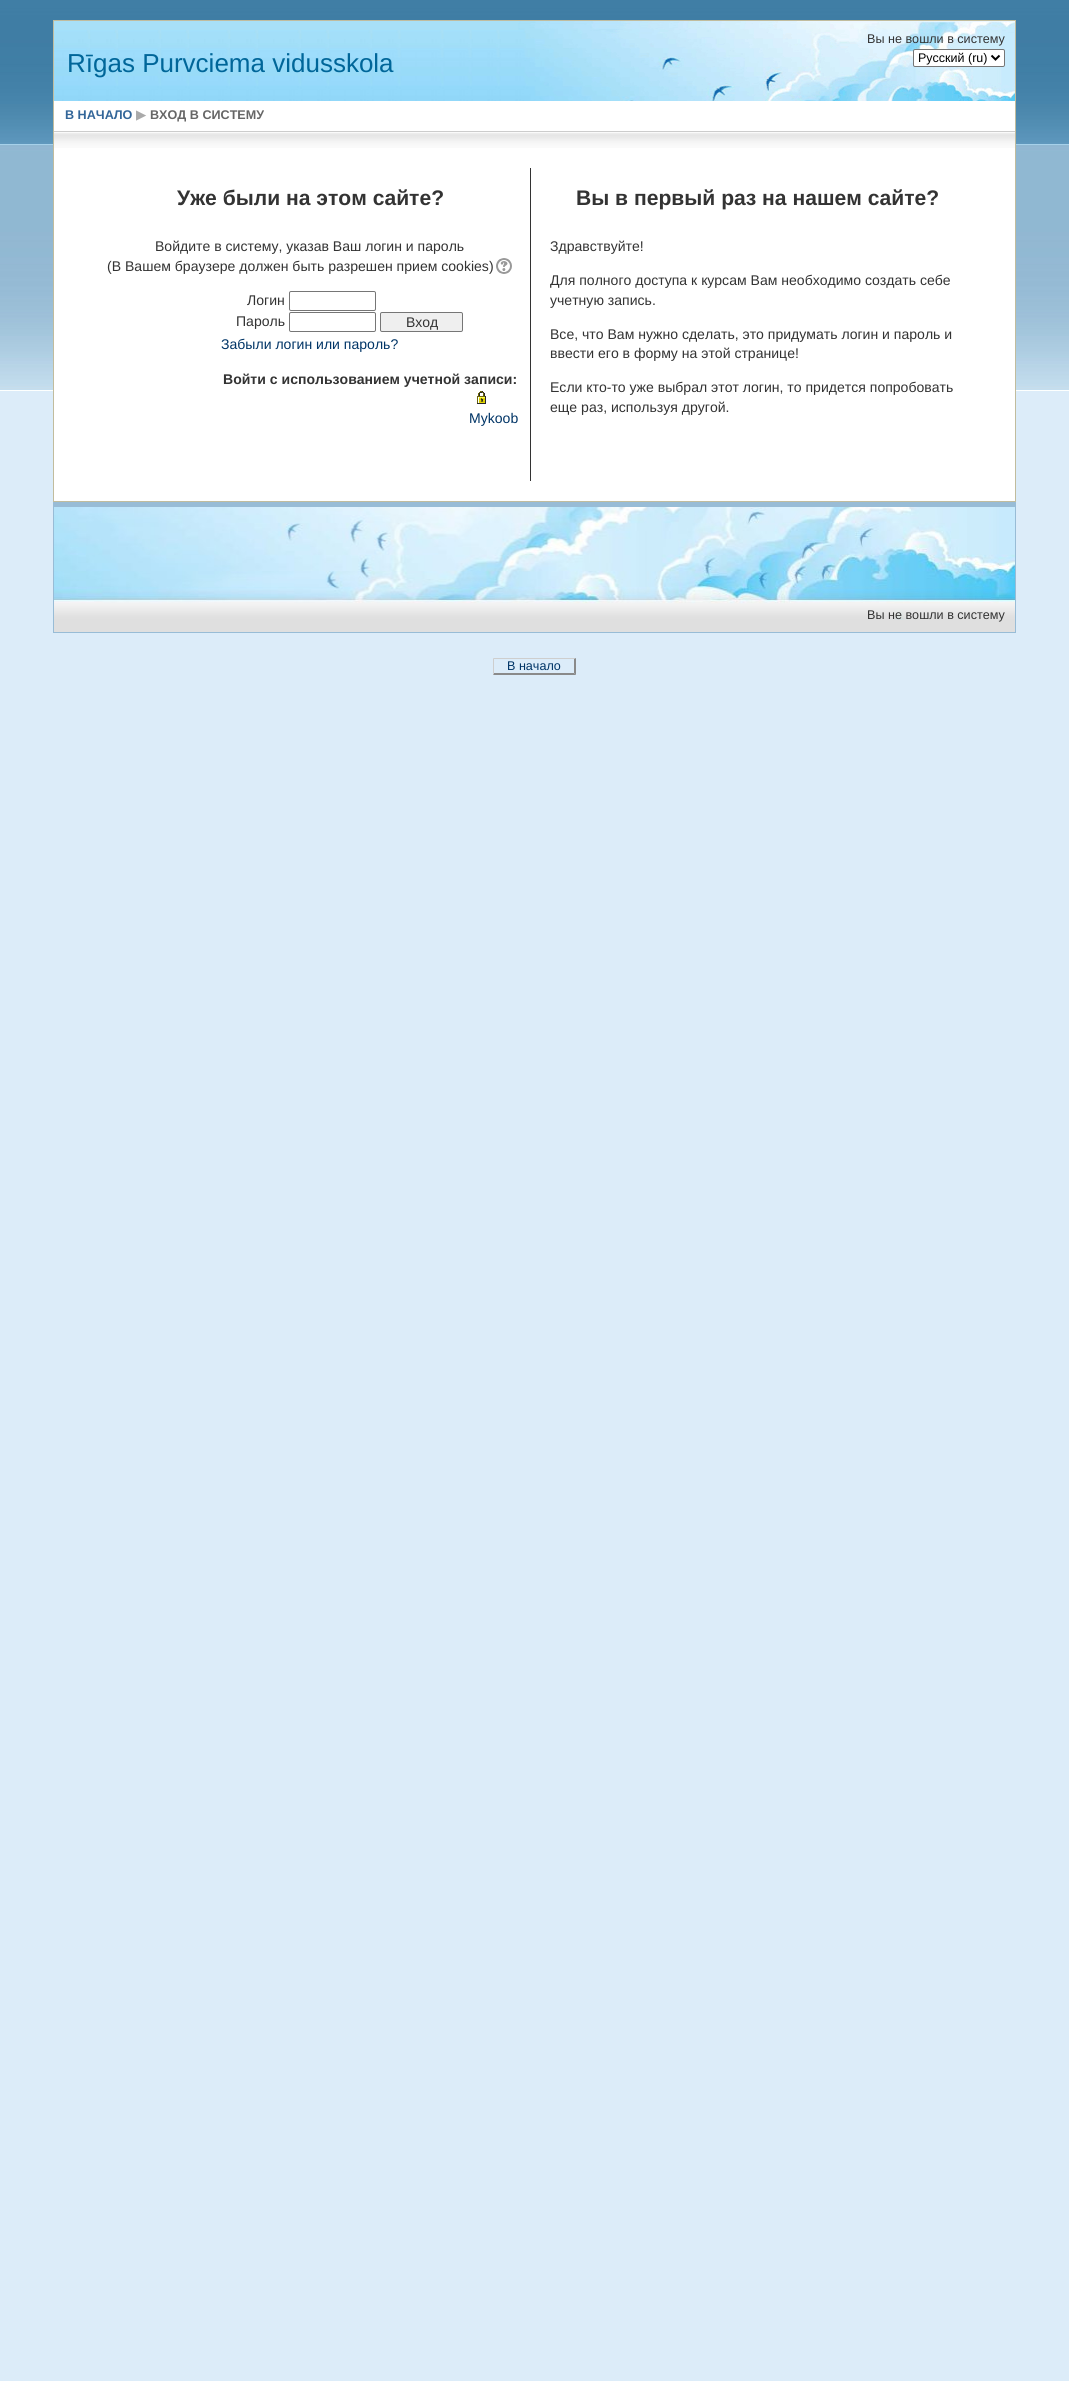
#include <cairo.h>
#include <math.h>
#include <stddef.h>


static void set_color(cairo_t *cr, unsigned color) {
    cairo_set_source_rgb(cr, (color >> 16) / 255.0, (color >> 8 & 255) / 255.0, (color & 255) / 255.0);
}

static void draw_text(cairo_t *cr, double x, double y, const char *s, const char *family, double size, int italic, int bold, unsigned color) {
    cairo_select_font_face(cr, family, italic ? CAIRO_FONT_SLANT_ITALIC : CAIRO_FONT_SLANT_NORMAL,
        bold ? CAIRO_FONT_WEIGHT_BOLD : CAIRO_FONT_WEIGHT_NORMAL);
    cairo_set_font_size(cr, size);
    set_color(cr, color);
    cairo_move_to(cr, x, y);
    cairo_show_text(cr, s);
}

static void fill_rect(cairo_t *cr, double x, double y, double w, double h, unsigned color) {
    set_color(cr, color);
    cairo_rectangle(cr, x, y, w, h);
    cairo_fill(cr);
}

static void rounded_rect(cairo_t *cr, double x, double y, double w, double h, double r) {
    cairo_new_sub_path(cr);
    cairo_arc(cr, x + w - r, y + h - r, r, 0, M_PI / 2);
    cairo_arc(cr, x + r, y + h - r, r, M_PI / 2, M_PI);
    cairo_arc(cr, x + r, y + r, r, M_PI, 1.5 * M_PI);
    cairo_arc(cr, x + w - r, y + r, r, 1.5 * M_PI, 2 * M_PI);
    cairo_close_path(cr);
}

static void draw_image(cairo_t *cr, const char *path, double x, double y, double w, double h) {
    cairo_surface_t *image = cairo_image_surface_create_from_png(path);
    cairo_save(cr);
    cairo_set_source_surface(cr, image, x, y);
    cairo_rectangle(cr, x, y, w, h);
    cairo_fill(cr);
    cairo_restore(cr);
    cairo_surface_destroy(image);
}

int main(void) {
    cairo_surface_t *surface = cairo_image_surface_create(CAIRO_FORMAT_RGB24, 1069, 2381);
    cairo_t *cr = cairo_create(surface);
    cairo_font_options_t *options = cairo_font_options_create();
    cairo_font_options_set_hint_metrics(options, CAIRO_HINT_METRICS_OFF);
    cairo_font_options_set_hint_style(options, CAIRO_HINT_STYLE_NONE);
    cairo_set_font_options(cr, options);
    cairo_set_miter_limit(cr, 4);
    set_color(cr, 0xFFFFFF);
    cairo_paint(cr);
    draw_image(cr, "assets/img1.png", 0, 0, 1069, 20);
    fill_rect(cr, 0, 391, 1069, 1990, 0xDCECF9);
    draw_image(cr, "assets/img2.png", 0, 20, 1069, 371);
    fill_rect(cr, 54, 102, 961, 29, 0xFFFFFF);
    cairo_rectangle(cr, 53.5, 20.5, 962, 481);
    set_color(cr, 0xC1BC9D);
    cairo_set_line_width(cr, 1);
    cairo_stroke(cr);
    draw_image(cr, "assets/img3.png", 54, 21, 961, 80);
    fill_rect(cr, 54, 101, 961, 1, 0xFFFFFF);
    draw_text(cr, 67, 72, "Rīgas Purvciema vidusskola", "Liberation Sans", 26, 0, 0, 0x006699);
    draw_text(cr, 867, 43, "Вы не вошли в систему", "Liberation Sans", 12.6, 0, 0, 0x333333);
    set_color(cr, 0xFFFFFF);
    rounded_rect(cr, 913.5, 49.5, 91, 17, 1.5);
    cairo_fill_preserve(cr);
    set_color(cr, 0x767676);
    cairo_stroke(cr);
    cairo_new_path(cr);
    cairo_move_to(cr, 991.5, 55.5);
    cairo_line_to(cr, 995.5, 59.5);
    cairo_line_to(cr, 999.5, 55.5);
    set_color(cr, 0x000000);
    cairo_set_line_width(cr, 2);
    cairo_stroke(cr);
    draw_text(cr, 918, 62, "Русский (ru)", "Liberation Sans", 12.5, 0, 0, 0x000000);
    draw_text(cr, 65, 119, "В НАЧАЛО", "Liberation Sans", 12.6, 0, 1, 0x336699);
    draw_text(cr, 136, 119, "▶", "DejaVu Sans", 12.6, 0, 1, 0xAAAAAA);
    draw_text(cr, 150, 119, "ВХОД В СИСТЕМУ", "Liberation Sans", 12.6, 0, 1, 0x666666);
    fill_rect(cr, 54, 131, 961, 1, 0xCCCCCC);
    fill_rect(cr, 54, 148, 961, 353, 0xFFFFFF);
    draw_image(cr, "assets/img4.png", 54, 132, 961, 16);
    fill_rect(cr, 530, 168, 1, 313, 0x333333);
    draw_text(cr, 177, 205, "Уже были на этом сайте?", "Liberation Sans", 21.1, 0, 1, 0x333333);
    draw_text(cr, 155, 251, "Войдите в систему, указав Ваш логин и пароль", "Liberation Sans", 14.05, 0, 0, 0x333333);
    draw_text(cr, 107, 271, "(В Вашем браузере должен быть разрешен прием cookies)", "Liberation Sans", 14.05, 0, 0, 0x333333);
    draw_image(cr, "assets/img5.png", 496, 258, 16, 16);
    draw_text(cr, 247, 305, "Логин", "Liberation Sans", 14.05, 0, 0, 0x333333);
    rounded_rect(cr, 289.5, 291.5, 86, 19, 1.5);
    set_color(cr, 0x767676);
    cairo_set_line_width(cr, 1);
    cairo_stroke(cr);
    draw_text(cr, 236, 326, "Пароль", "Liberation Sans", 14.05, 0, 0, 0x333333);
    rounded_rect(cr, 289.5, 312.5, 86, 19, 1.5);
    set_color(cr, 0x767676);
    cairo_stroke(cr);
    set_color(cr, 0xEFEFEF);
    rounded_rect(cr, 380.5, 312.5, 82, 19, 1.5);
    cairo_fill_preserve(cr);
    set_color(cr, 0x767676);
    cairo_stroke(cr);
    draw_text(cr, 406, 327, "Вход", "Liberation Sans", 14, 0, 0, 0x333333);
    draw_text(cr, 221, 349, "Забыли логин или пароль?", "Liberation Sans", 14.05, 0, 0, 0x003466);
    draw_text(cr, 576, 205, "Вы в первый раз на нашем сайте?", "Liberation Sans", 21.1, 0, 1, 0x333333);
    draw_text(cr, 550, 251, "Здравствуйте!", "Liberation Sans", 14.05, 0, 0, 0x333333);
    draw_text(cr, 550, 285, "Для полного доступа к курсам Вам необходимо создать себе", "Liberation Sans", 14.05, 0, 0, 0x333333);
    draw_text(cr, 550, 305, "учетную запись.", "Liberation Sans", 14.05, 0, 0, 0x333333);
    draw_text(cr, 550, 339, "Все, что Вам нужно сделать, это придумать логин и пароль и", "Liberation Sans", 14.05, 0, 0, 0x333333);
    draw_text(cr, 550, 358, "ввести его в форму на этой странице!", "Liberation Sans", 14.05, 0, 0, 0x333333);
    draw_text(cr, 550, 392, "Если кто-то уже выбрал этот логин, то придется попробовать", "Liberation Sans", 14.05, 0, 0, 0x333333);
    draw_text(cr, 550, 412, "еще раз, используя другой.", "Liberation Sans", 14.05, 0, 0, 0x333333);
    draw_text(cr, 223, 384, "Войти с использованием учетной записи:", "Liberation Sans", 14.05, 0, 1, 0x333333);
    draw_image(cr, "assets/img6.png", 477, 391, 9, 13);
    draw_text(cr, 469, 423, "Mykoob", "Liberation Sans", 14.05, 0, 0, 0x003466);
    fill_rect(cr, 54, 620, 961, 12, 0xDFDFDF);
    draw_image(cr, "assets/img7.png", 54, 507, 961, 113);
    fill_rect(cr, 53, 502, 963, 5, 0x98BCD6);
    fill_rect(cr, 1015, 502, 1, 131, 0x98BCD6);
    fill_rect(cr, 53, 632, 963, 1, 0x98BCD6);
    fill_rect(cr, 53, 502, 1, 131, 0x98BCD6);
    draw_text(cr, 867, 619, "Вы не вошли в систему", "Liberation Sans", 12.6, 0, 0, 0x333333);
    draw_text(cr, 507, 670, "В начало", "Liberation Sans", 12.6, 0, 0, 0x003466);
    set_color(cr, 0xCECECE);
    cairo_new_path(cr);
    cairo_move_to(cr, 493, 658);
    cairo_line_to(cr, 576, 658);
    cairo_line_to(cr, 574, 659);
    cairo_line_to(cr, 494, 659);
    cairo_close_path(cr);
    cairo_fill(cr);
    set_color(cr, 0x8A8A8A);
    cairo_new_path(cr);
    cairo_move_to(cr, 576, 658);
    cairo_line_to(cr, 576, 675);
    cairo_line_to(cr, 574, 673);
    cairo_line_to(cr, 574, 659);
    cairo_close_path(cr);
    cairo_fill(cr);
    cairo_new_path(cr);
    cairo_move_to(cr, 576, 675);
    cairo_line_to(cr, 493, 675);
    cairo_line_to(cr, 494, 673);
    cairo_line_to(cr, 574, 673);
    cairo_close_path(cr);
    cairo_fill(cr);
    set_color(cr, 0xCECECE);
    cairo_new_path(cr);
    cairo_move_to(cr, 493, 675);
    cairo_line_to(cr, 493, 658);
    cairo_line_to(cr, 494, 659);
    cairo_line_to(cr, 494, 673);
    cairo_close_path(cr);
    cairo_fill(cr);
    cairo_surface_write_to_png(surface, "output.png");
    cairo_font_options_destroy(options);
    cairo_destroy(cr);
    cairo_surface_destroy(surface);
    return 0;
}
